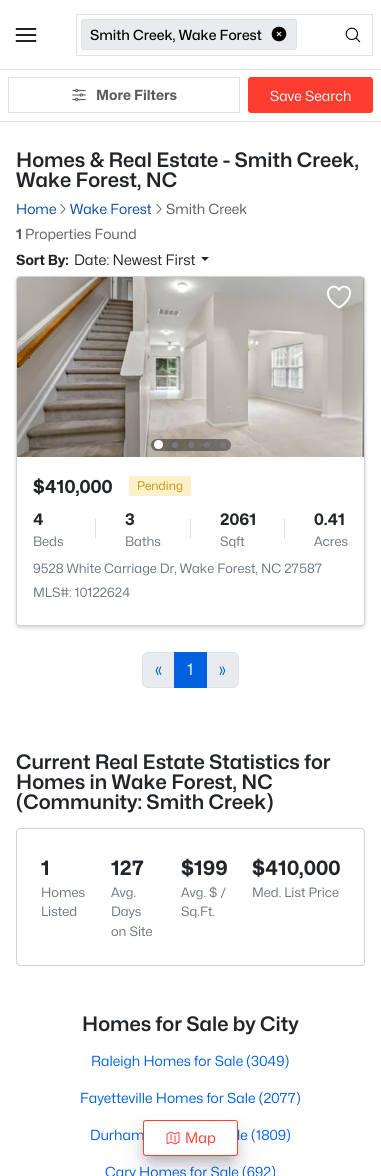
#include <cairo.h>
#include <math.h>
#include <stddef.h>


static void set_color(cairo_t *cr, unsigned color) {
    cairo_set_source_rgb(cr, (color >> 16) / 255.0, (color >> 8 & 255) / 255.0, (color & 255) / 255.0);
}

static void draw_text(cairo_t *cr, double x, double y, const char *s, const char *family, double size, int italic, int bold, unsigned color) {
    cairo_select_font_face(cr, family, italic ? CAIRO_FONT_SLANT_ITALIC : CAIRO_FONT_SLANT_NORMAL,
        bold ? CAIRO_FONT_WEIGHT_BOLD : CAIRO_FONT_WEIGHT_NORMAL);
    cairo_set_font_size(cr, size);
    set_color(cr, color);
    cairo_move_to(cr, x, y);
    cairo_show_text(cr, s);
}

static void fill_rect(cairo_t *cr, double x, double y, double w, double h, unsigned color) {
    set_color(cr, color);
    cairo_rectangle(cr, x, y, w, h);
    cairo_fill(cr);
}

static void rounded_rect(cairo_t *cr, double x, double y, double w, double h, double r) {
    cairo_new_sub_path(cr);
    cairo_arc(cr, x + w - r, y + h - r, r, 0, M_PI / 2);
    cairo_arc(cr, x + r, y + h - r, r, M_PI / 2, M_PI);
    cairo_arc(cr, x + r, y + r, r, M_PI, 1.5 * M_PI);
    cairo_arc(cr, x + w - r, y + r, r, 1.5 * M_PI, 2 * M_PI);
    cairo_close_path(cr);
}

static void draw_shadow(cairo_t *cr, double x, double y, double w, double h, double r, double blur, double alpha) {
    cairo_push_group_with_content(cr, CAIRO_CONTENT_ALPHA);
    cairo_set_operator(cr, CAIRO_OPERATOR_SOURCE);
    for (int i = 15; i >= -15 && fmin(w, h) + blur * i / 3 > 0; i -= 2) {
        double e = blur * i / 6;
        cairo_set_source_rgba(cr, 0, 0, 0, alpha * erfc((i - 1) / 8.5) / 2);
        rounded_rect(cr, x - e, y - e, w + 2 * e, h + 2 * e, fmax(0, fmin(r + e + blur * .6, fmin(w, h) / 2 + e)));
        cairo_fill(cr);
    }
    cairo_pattern_t *soft = cairo_pop_group(cr);
    cairo_mask(cr, soft);
    cairo_pattern_destroy(soft);
}

static void draw_image(cairo_t *cr, const char *path, double x, double y, double w, double h) {
    cairo_surface_t *image = cairo_image_surface_create_from_png(path);
    cairo_save(cr);
    cairo_set_source_surface(cr, image, x, y);
    cairo_rectangle(cr, x, y, w, h);
    cairo_fill(cr);
    cairo_restore(cr);
    cairo_surface_destroy(image);
}

int main(void) {
    cairo_surface_t *surface = cairo_image_surface_create(CAIRO_FORMAT_RGB24, 381, 1176);
    cairo_t *cr = cairo_create(surface);
    cairo_font_options_t *options = cairo_font_options_create();
    cairo_font_options_set_hint_metrics(options, CAIRO_HINT_METRICS_OFF);
    cairo_font_options_set_hint_style(options, CAIRO_HINT_STYLE_NONE);
    cairo_set_font_options(cr, options);
    cairo_set_miter_limit(cr, 4);
    set_color(cr, 0xFFFFFF);
    cairo_paint(cr);
    fill_rect(cr, 0, 69, 381, 1, 0xDEE2E6);
    cairo_new_path(cr);
    cairo_move_to(cr, 16.5, 29);
    cairo_line_to(cr, 35.5, 29);
    cairo_move_to(cr, 16.5, 35);
    cairo_line_to(cr, 35.5, 35);
    cairo_move_to(cr, 16.5, 41);
    cairo_line_to(cr, 35.5, 41);
    set_color(cr, 0x000000);
    cairo_set_line_width(cr, 1.8);
    cairo_set_line_cap(cr, CAIRO_LINE_CAP_ROUND);
    cairo_set_line_join(cr, CAIRO_LINE_JOIN_ROUND);
    cairo_stroke(cr);
    cairo_rectangle(cr, 76.5, 14.5, 296, 41);
    set_color(cr, 0xDEE2E6);
    cairo_set_line_width(cr, 1);
    cairo_set_line_cap(cr, CAIRO_LINE_CAP_BUTT);
    cairo_set_line_join(cr, CAIRO_LINE_JOIN_MITER);
    cairo_stroke(cr);
    set_color(cr, 0xE9ECEF);
    rounded_rect(cr, 81.5, 19.5, 215, 30, 2.5);
    cairo_fill_preserve(cr);
    set_color(cr, 0xDEE2E6);
    cairo_stroke(cr);
    draw_text(cr, 90, 40, "Smith Creek, Wake Forest", "Mona Sans Medium", 14, 0, 0, 0x000000);
    draw_image(cr, "assets/img1.png", 271, 26, 16, 16);
    draw_image(cr, "assets/img2.png", 345, 27, 16, 16);
    fill_rect(cr, 0, 121, 381, 1, 0xDEE2E6);
    cairo_rectangle(cr, 8.5, 77.5, 231, 35);
    cairo_stroke(cr);
    draw_image(cr, "assets/img3.png", 72, 88, 14, 14);
    draw_text(cr, 96, 100, "More Filters", "Mona Sans", 14, 0, 1, 0x595C5F);
    set_color(cr, 0xFE3C30);
    rounded_rect(cr, 248.5, 77.5, 124, 35, 2.5);
    cairo_fill_preserve(cr);
    cairo_stroke(cr);
    draw_text(cr, 270, 101, "Save Search", "Mona Sans", 14, 0, 0, 0xFFFFFF);
    draw_text(cr, 16, 167, "Homes & Real Estate - Smith Creek,", "Mona Sans SemiBold", 20, 0, 0, 0x212529);
    draw_text(cr, 16, 187, "Wake Forest, NC", "Mona Sans SemiBold", 20, 0, 0, 0x212529);
    draw_text(cr, 16, 214, "Home", "Mona Sans", 14, 0, 0, 0x0049A7);
    cairo_new_path(cr);
    cairo_move_to(cr, 61, 204.5);
    cairo_line_to(cr, 65, 209);
    cairo_line_to(cr, 61, 213.5);
    set_color(cr, 0x595C5F);
    cairo_set_line_width(cr, 0.9);
    cairo_set_line_cap(cr, CAIRO_LINE_CAP_ROUND);
    cairo_set_line_join(cr, CAIRO_LINE_JOIN_ROUND);
    cairo_stroke(cr);
    draw_text(cr, 70, 214, "Wake Forest", "Mona Sans", 14, 0, 0, 0x0049A7);
    cairo_new_path(cr);
    cairo_move_to(cr, 157, 204.5);
    cairo_line_to(cr, 161, 209);
    cairo_line_to(cr, 157, 213.5);
    set_color(cr, 0x595C5F);
    cairo_stroke(cr);
    draw_text(cr, 166, 214, "Smith Creek", "Mona Sans", 14, 0, 0, 0x595C5F);
    draw_text(cr, 16, 239, "1", "Mona Sans", 14, 0, 1, 0x595C5F);
    draw_text(cr, 25, 239, "Properties Found", "Mona Sans", 14, 0, 0, 0x595C5F);
    draw_text(cr, 16, 265, "Sort By:", "Mona Sans", 14, 0, 1, 0x212529);
    draw_text(cr, 74, 265, "Date: Newest First", "Mona Sans", 14.5, 0, 0, 0x212529);
    cairo_new_path(cr);
    cairo_move_to(cr, 201, 257);
    cairo_line_to(cr, 209, 257);
    cairo_line_to(cr, 205, 261);
    cairo_close_path(cr);
    cairo_fill(cr);
    set_color(cr, 0x000000);
    draw_shadow(cr, 16, 278, 349, 350, 4, 2, 0.16);
    set_color(cr, 0xFFFFFF);
    rounded_rect(cr, 16, 276, 349, 350, 4);
    cairo_fill(cr);
    rounded_rect(cr, 16.5, 276.5, 348, 349, 3.5);
    cairo_set_source_rgba(cr, 0, 0, 0, 0.18);
    cairo_set_line_width(cr, 1);
    cairo_set_line_cap(cr, CAIRO_LINE_CAP_BUTT);
    cairo_set_line_join(cr, CAIRO_LINE_JOIN_MITER);
    cairo_stroke(cr);
    draw_image(cr, "assets/img4.png", 17, 277, 347, 180);
    cairo_set_source_rgba(cr, 0, 0, 0, 0.4);
    rounded_rect(cr, 151, 439, 80, 12, 6);
    cairo_fill(cr);
    set_color(cr, 0xFFFFFF);
    cairo_arc(cr, 158.5, 444.5, 4.5, 0, 2 * M_PI);
    cairo_fill(cr);
    set_color(cr, 0x78797C);
    cairo_arc(cr, 175, 445, 3, 0, 2 * M_PI);
    cairo_fill(cr);
    cairo_arc(cr, 191, 445, 3, 0, 2 * M_PI);
    cairo_fill(cr);
    cairo_arc(cr, 207, 445, 3, 0, 2 * M_PI);
    cairo_fill(cr);
    cairo_arc(cr, 223, 445, 3, 0, 2 * M_PI);
    cairo_fill(cr);
    cairo_new_path(cr);
    cairo_move_to(cr, 350, 292.5);
    cairo_curve_to(cr, 350, 286, 341.5, 284.5, 339, 290);
    cairo_curve_to(cr, 336, 283, 323.5, 287.5, 329.5, 298.5);
    cairo_curve_to(cr, 331.5, 302, 335.5, 305.5, 339, 307.5);
    cairo_curve_to(cr, 339, 307.5, 350, 301.5, 350, 292.5);
    cairo_close_path(cr);
    set_color(cr, 0xFFFFFF);
    cairo_set_line_width(cr, 1.9);
    cairo_set_line_cap(cr, CAIRO_LINE_CAP_ROUND);
    cairo_set_line_join(cr, CAIRO_LINE_JOIN_ROUND);
    cairo_stroke(cr);
    draw_text(cr, 33, 493, "$410,000", "Mona Sans", 18, 0, 1, 0x212529);
    set_color(cr, 0xFDF1CC);
    rounded_rect(cr, 129, 476, 62, 20, 2);
    cairo_fill(cr);
    draw_text(cr, 137, 490, "Pending", "Mona Sans", 12, 0, 0, 0xC49300);
    draw_text(cr, 33, 525, "4", "Mona Sans", 16, 0, 1, 0x212529);
    fill_rect(cr, 95, 519, 1, 20, 0xDEE2E6);
    draw_text(cr, 33, 546, "Beds", "Mona Sans", 13, 0, 0, 0x6C757D);
    draw_text(cr, 125, 525, "3", "Mona Sans", 16, 0, 1, 0x212529);
    draw_text(cr, 125, 546, "Baths", "Mona Sans", 13, 0, 0, 0x6C757D);
    fill_rect(cr, 190, 519, 1, 20, 0xDEE2E6);
    draw_text(cr, 220, 525, "2061", "Mona Sans", 16, 0, 1, 0x212529);
    draw_text(cr, 220, 546, "Sqft", "Mona Sans", 13, 0, 0, 0x6C757D);
    fill_rect(cr, 284, 519, 1, 20, 0xDEE2E6);
    draw_text(cr, 314, 525, "0.41", "Mona Sans", 16, 0, 1, 0x212529);
    draw_text(cr, 314, 546, "Acres", "Mona Sans", 13, 0, 0, 0x6C757D);
    draw_text(cr, 33, 573, "9528 White Carriage Dr, Wake Forest, NC 27587", "Mona Sans", 13, 0, 0, 0x6C757D);
    draw_text(cr, 33, 597, "MLS#: 10122624", "Mona Sans", 13, 0, 0, 0x6C757D);
    set_color(cr, 0xE9ECEF);
    cairo_new_path(cr);
    cairo_move_to(cr, 148, 652.5);
    cairo_line_to(cr, 174.5, 652.5);
    cairo_line_to(cr, 174.5, 687.5);
    cairo_line_to(cr, 148, 687.5);
    cairo_curve_to(cr, 145, 687.5, 142.5, 685, 142.5, 682);
    cairo_line_to(cr, 142.5, 658);
    cairo_curve_to(cr, 142.5, 655, 145, 652.5, 148, 652.5);
    cairo_close_path(cr);
    cairo_fill_preserve(cr);
    set_color(cr, 0xDEE2E6);
    cairo_set_line_width(cr, 1);
    cairo_set_line_cap(cr, CAIRO_LINE_CAP_BUTT);
    cairo_set_line_join(cr, CAIRO_LINE_JOIN_MITER);
    cairo_stroke(cr);
    draw_text(cr, 155, 675, "«", "Mona Sans", 16, 0, 0, 0x0061DF);
    set_color(cr, 0xE9ECEF);
    cairo_new_path(cr);
    cairo_move_to(cr, 206.5, 652.5);
    cairo_line_to(cr, 233, 652.5);
    cairo_curve_to(cr, 236, 652.5, 238.5, 655, 238.5, 658);
    cairo_line_to(cr, 238.5, 682);
    cairo_curve_to(cr, 238.5, 685, 236, 687.5, 233, 687.5);
    cairo_line_to(cr, 206.5, 687.5);
    cairo_close_path(cr);
    cairo_fill_preserve(cr);
    set_color(cr, 0xDEE2E6);
    cairo_stroke(cr);
    fill_rect(cr, 174, 652, 33, 36, 0x0061DF);
    draw_text(cr, 187, 675, "1", "Mona Sans", 16, 0, 0, 0xFFFFFF);
    draw_text(cr, 219, 675, "»", "Mona Sans", 16, 0, 0, 0x0061DF);
    draw_text(cr, 16, 769, "Current Real Estate Statistics for", "Mona Sans SemiBold", 20, 0, 0, 0x212529);
    draw_text(cr, 16, 789, "Homes in Wake Forest, NC", "Mona Sans SemiBold", 20, 0, 0, 0x212529);
    draw_text(cr, 16, 809, "(Community: Smith Creek)", "Mona Sans SemiBold", 20, 0, 0, 0x212529);
    rounded_rect(cr, 16.5, 828.5, 348, 137, 3.5);
    set_color(cr, 0xD2D2D2);
    cairo_stroke(cr);
    draw_text(cr, 41, 875, "1", "Mona Sans", 20, 0, 1, 0x212529);
    draw_text(cr, 41, 897, "Homes", "Mona Sans", 13, 0, 0, 0x6C757D);
    draw_text(cr, 41, 916, "Listed", "Mona Sans", 13, 0, 0, 0x6C757D);
    draw_text(cr, 111, 875, "127", "Mona Sans", 20, 0, 1, 0x212529);
    draw_text(cr, 111, 897, "Avg.", "Mona Sans", 13, 0, 0, 0x6C757D);
    draw_text(cr, 111, 916, "Days", "Mona Sans", 13, 0, 0, 0x6C757D);
    draw_text(cr, 111, 936, "on Site", "Mona Sans", 13, 0, 0, 0x6C757D);
    draw_text(cr, 181, 875, "$199", "Mona Sans", 20, 0, 1, 0x212529);
    draw_text(cr, 181, 897, "Avg. $ /", "Mona Sans", 13, 0, 0, 0x6C757D);
    draw_text(cr, 181, 916, "Sq.Ft.", "Mona Sans", 13, 0, 0, 0x6C757D);
    draw_text(cr, 252, 875, "$410,000", "Mona Sans", 20, 0, 1, 0x212529);
    draw_text(cr, 252, 897, "Med. List Price", "Mona Sans", 13, 0, 0, 0x6C757D);
    draw_text(cr, 82, 1031, "Homes for Sale by City", "Mona Sans SemiBold", 20, 0, 0, 0x212529);
    draw_text(cr, 91, 1066, "Raleigh Homes for Sale (3049)", "Mona Sans", 14, 0, 0, 0x0061DF);
    draw_text(cr, 80, 1103, "Fayetteville Homes for Sale (2077)", "Mona Sans", 14, 0, 0, 0x0061DF);
    draw_text(cr, 90, 1140, "Durham", "Mona Sans", 14, 0, 0, 0x0061DF);
    draw_text(cr, 237, 1140, "le (1809)", "Mona Sans", 14, 0, 0, 0x0061DF);
    draw_text(cr, 105, 1177, "Cary Homes for Sale (692)", "Mona Sans", 14, 0, 0, 0x0061DF);
    set_color(cr, 0x000000);
    draw_shadow(cr, 151, 1136, 79, 20, 0, 8, 0.3);
    set_color(cr, 0x32325D);
    draw_shadow(cr, 148, 1138, 85, 26, 0, 13.5, 0.25);
    set_color(cr, 0xFFFFFF);
    rounded_rect(cr, 143.5, 1120.5, 94, 35, 2.5);
    cairo_fill_preserve(cr);
    set_color(cr, 0xFE3C30);
    cairo_stroke(cr);
    draw_image(cr, "assets/img5.png", 166, 1131, 14, 14);
    draw_text(cr, 185, 1143, "Map", "Mona Sans", 14.5, 0, 0, 0xFE3C30);
    cairo_surface_write_to_png(surface, "output.png");
    cairo_font_options_destroy(options);
    cairo_destroy(cr);
    cairo_surface_destroy(surface);
    return 0;
}
